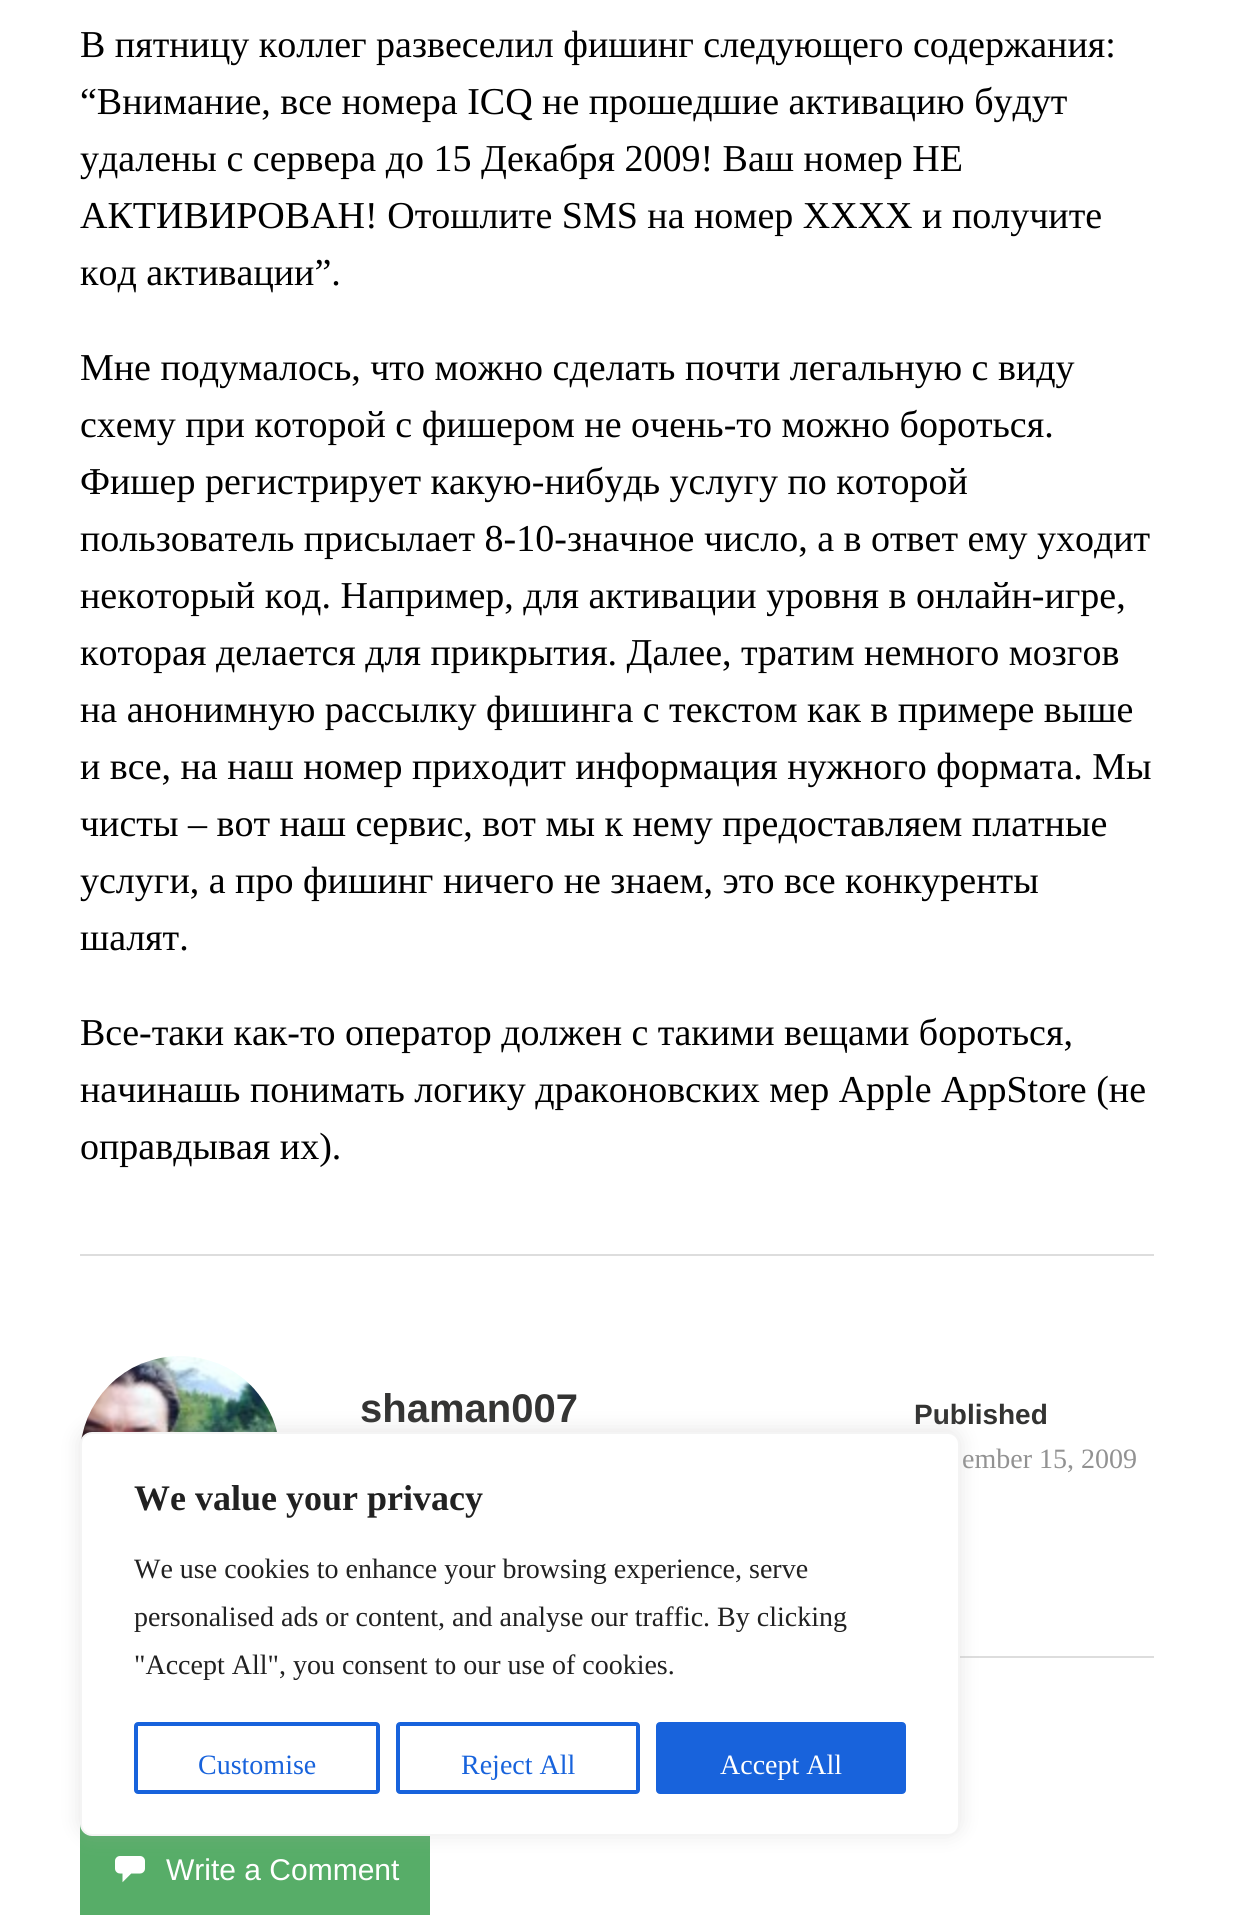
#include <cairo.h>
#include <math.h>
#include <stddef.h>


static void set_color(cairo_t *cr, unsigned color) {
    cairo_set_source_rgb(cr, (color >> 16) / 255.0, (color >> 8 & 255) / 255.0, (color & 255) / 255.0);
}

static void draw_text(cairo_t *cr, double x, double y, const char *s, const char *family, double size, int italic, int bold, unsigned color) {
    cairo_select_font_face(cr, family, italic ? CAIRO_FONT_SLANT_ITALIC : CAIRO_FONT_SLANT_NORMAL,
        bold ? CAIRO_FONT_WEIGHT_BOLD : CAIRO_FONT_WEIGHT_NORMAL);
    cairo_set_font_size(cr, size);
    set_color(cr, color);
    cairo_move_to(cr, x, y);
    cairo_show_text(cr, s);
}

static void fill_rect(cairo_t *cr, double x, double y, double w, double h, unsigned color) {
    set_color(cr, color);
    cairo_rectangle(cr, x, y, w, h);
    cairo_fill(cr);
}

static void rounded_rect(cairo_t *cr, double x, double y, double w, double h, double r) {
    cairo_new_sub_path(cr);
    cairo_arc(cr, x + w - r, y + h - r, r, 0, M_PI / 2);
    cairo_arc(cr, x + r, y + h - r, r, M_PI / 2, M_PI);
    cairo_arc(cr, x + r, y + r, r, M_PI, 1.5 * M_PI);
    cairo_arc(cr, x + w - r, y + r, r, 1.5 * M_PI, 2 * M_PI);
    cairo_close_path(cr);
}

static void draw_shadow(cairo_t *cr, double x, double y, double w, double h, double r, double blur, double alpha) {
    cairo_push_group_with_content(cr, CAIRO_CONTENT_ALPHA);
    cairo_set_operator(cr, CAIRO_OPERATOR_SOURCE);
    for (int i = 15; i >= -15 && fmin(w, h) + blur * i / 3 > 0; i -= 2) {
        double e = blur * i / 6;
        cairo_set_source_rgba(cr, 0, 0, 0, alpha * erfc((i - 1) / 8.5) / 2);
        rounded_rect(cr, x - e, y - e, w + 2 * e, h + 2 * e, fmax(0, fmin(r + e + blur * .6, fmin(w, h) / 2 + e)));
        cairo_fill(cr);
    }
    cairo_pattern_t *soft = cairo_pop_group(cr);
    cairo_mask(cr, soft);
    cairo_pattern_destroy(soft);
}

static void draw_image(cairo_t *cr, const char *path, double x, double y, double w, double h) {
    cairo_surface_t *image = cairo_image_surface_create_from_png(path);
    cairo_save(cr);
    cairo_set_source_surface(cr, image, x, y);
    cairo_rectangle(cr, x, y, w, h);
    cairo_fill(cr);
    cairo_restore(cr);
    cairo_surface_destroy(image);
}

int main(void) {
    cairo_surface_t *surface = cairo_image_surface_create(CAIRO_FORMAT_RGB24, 1233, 1915);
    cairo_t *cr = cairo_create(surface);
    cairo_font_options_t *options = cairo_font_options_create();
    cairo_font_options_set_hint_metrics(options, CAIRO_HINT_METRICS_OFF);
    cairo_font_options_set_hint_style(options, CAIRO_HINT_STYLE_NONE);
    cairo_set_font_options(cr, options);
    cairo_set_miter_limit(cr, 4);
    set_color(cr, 0xFFFFFF);
    cairo_paint(cr);
    draw_text(cr, 80, 57, "В пятницу коллег развеселил фишинг следующего содержания:", "Liberation Serif", 38, 0, 0, 0x000000);
    draw_text(cr, 80, 114, "“Внимание, все номера ICQ не прошедшие активацию будут", "Liberation Serif", 38, 0, 0, 0x000000);
    draw_text(cr, 80, 171, "удалены с сервера до 15 Декабря 2009! Ваш номер НЕ", "Liberation Serif", 38, 0, 0, 0x000000);
    draw_text(cr, 80, 228, "АКТИВИРОВАН! Отошлите SMS на номер ХХХХ и получите", "Liberation Serif", 38, 0, 0, 0x000000);
    draw_text(cr, 80, 285, "код активации”.", "Liberation Serif", 38, 0, 0, 0x000000);
    draw_text(cr, 80, 380, "Мне подумалось, что можно сделать почти легальную с виду", "Liberation Serif", 38, 0, 0, 0x000000);
    draw_text(cr, 80, 437, "схему при которой с фишером не очень-то можно бороться.", "Liberation Serif", 38, 0, 0, 0x000000);
    draw_text(cr, 80, 494, "Фишер регистрирует какую-нибудь услугу по которой", "Liberation Serif", 38, 0, 0, 0x000000);
    draw_text(cr, 80, 551, "пользователь присылает 8-10-значное число, а в ответ ему уходит", "Liberation Serif", 38, 0, 0, 0x000000);
    draw_text(cr, 80, 608, "некоторый код. Например, для активации уровня в онлайн-игре,", "Liberation Serif", 38, 0, 0, 0x000000);
    draw_text(cr, 80, 665, "которая делается для прикрытия. Далее, тратим немного мозгов", "Liberation Serif", 38, 0, 0, 0x000000);
    draw_text(cr, 80, 722, "на анонимную рассылку фишинга с текстом как в примере выше", "Liberation Serif", 38, 0, 0, 0x000000);
    draw_text(cr, 80, 779, "и все, на наш номер приходит информация нужного формата. Мы", "Liberation Serif", 38, 0, 0, 0x000000);
    draw_text(cr, 80, 836, "чисты – вот наш сервис, вот мы к нему предоставляем платные", "Liberation Serif", 38, 0, 0, 0x000000);
    draw_text(cr, 80, 893, "услуги, а про фишинг ничего не знаем, это все конкуренты", "Liberation Serif", 38, 0, 0, 0x000000);
    draw_text(cr, 80, 950, "шалят.", "Liberation Serif", 38, 0, 0, 0x000000);
    draw_text(cr, 80, 1045, "Все-таки как-то оператор должен с такими вещами бороться,", "Liberation Serif", 38, 0, 0, 0x000000);
    draw_text(cr, 80, 1102, "начинашь понимать логику драконовских мер Apple AppStore (не", "Liberation Serif", 38, 0, 0, 0x000000);
    draw_text(cr, 80, 1159, "оправдывая их).", "Liberation Serif", 38, 0, 0, 0x000000);
    fill_rect(cr, 80, 1254, 1074, 2, 0xDDDDDD);
    fill_rect(cr, 960, 1656, 194, 2, 0xDDDDDD);
    draw_image(cr, "assets/img1.png", 80, 1356, 197, 88);
    draw_text(cr, 360, 1422, "shaman007", "Liberation Sans", 40, 0, 1, 0x333332);
    draw_text(cr, 914, 1424, "Published", "Liberation Sans", 28, 0, 1, 0x333332);
    draw_text(cr, 962, 1468, "ember 15, 2009", "Liberation Serif", 28, 0, 0, 0x929292);
    fill_rect(cr, 80, 1824, 350, 91, 0x57AD68);
    draw_image(cr, "assets/img2.png", 115, 1856, 30, 27);
    draw_text(cr, 166, 1880, "Write a Comment", "Liberation Sans", 30, 0, 0, 0xFFFFFF);
    set_color(cr, 0xACABAB);
    draw_shadow(cr, 80, 1430, 880, 404, 12, 10, 0.3);
    set_color(cr, 0xFFFFFF);
    rounded_rect(cr, 81, 1433, 878, 402, 11);
    cairo_fill_preserve(cr);
    set_color(cr, 0xF4F4F4);
    cairo_stroke(cr);
    draw_text(cr, 134, 1510, "We value your privacy", "Liberation Serif", 36, 0, 1, 0x212121);
    draw_text(cr, 134, 1578, "We use cookies to enhance your browsing experience, serve", "Liberation Serif", 28, 0, 0, 0x212121);
    draw_text(cr, 134, 1626, "personalised ads or content, and analyse our traffic. By clicking", "Liberation Serif", 28, 0, 0, 0x212121);
    draw_text(cr, 134, 1674, "\"Accept All\", you consent to our use of cookies.", "Liberation Serif", 28, 0, 0, 0x212121);
    rounded_rect(cr, 136, 1724, 242, 68, 2);
    set_color(cr, 0x1863DC);
    cairo_set_line_width(cr, 4);
    cairo_stroke(cr);
    draw_text(cr, 198, 1774, "Customise", "Liberation Serif", 28, 0, 0, 0x1863DC);
    rounded_rect(cr, 398, 1724, 240, 68, 2);
    cairo_stroke(cr);
    draw_text(cr, 461, 1774, "Reject All", "Liberation Serif", 28, 0, 0, 0x1863DC);
    rounded_rect(cr, 658, 1724, 246, 68, 2);
    cairo_fill_preserve(cr);
    cairo_stroke(cr);
    draw_text(cr, 720, 1774, "Accept All", "Liberation Serif", 28, 0, 0, 0xFFFFFF);
    cairo_surface_write_to_png(surface, "output.png");
    cairo_font_options_destroy(options);
    cairo_destroy(cr);
    cairo_surface_destroy(surface);
    return 0;
}
